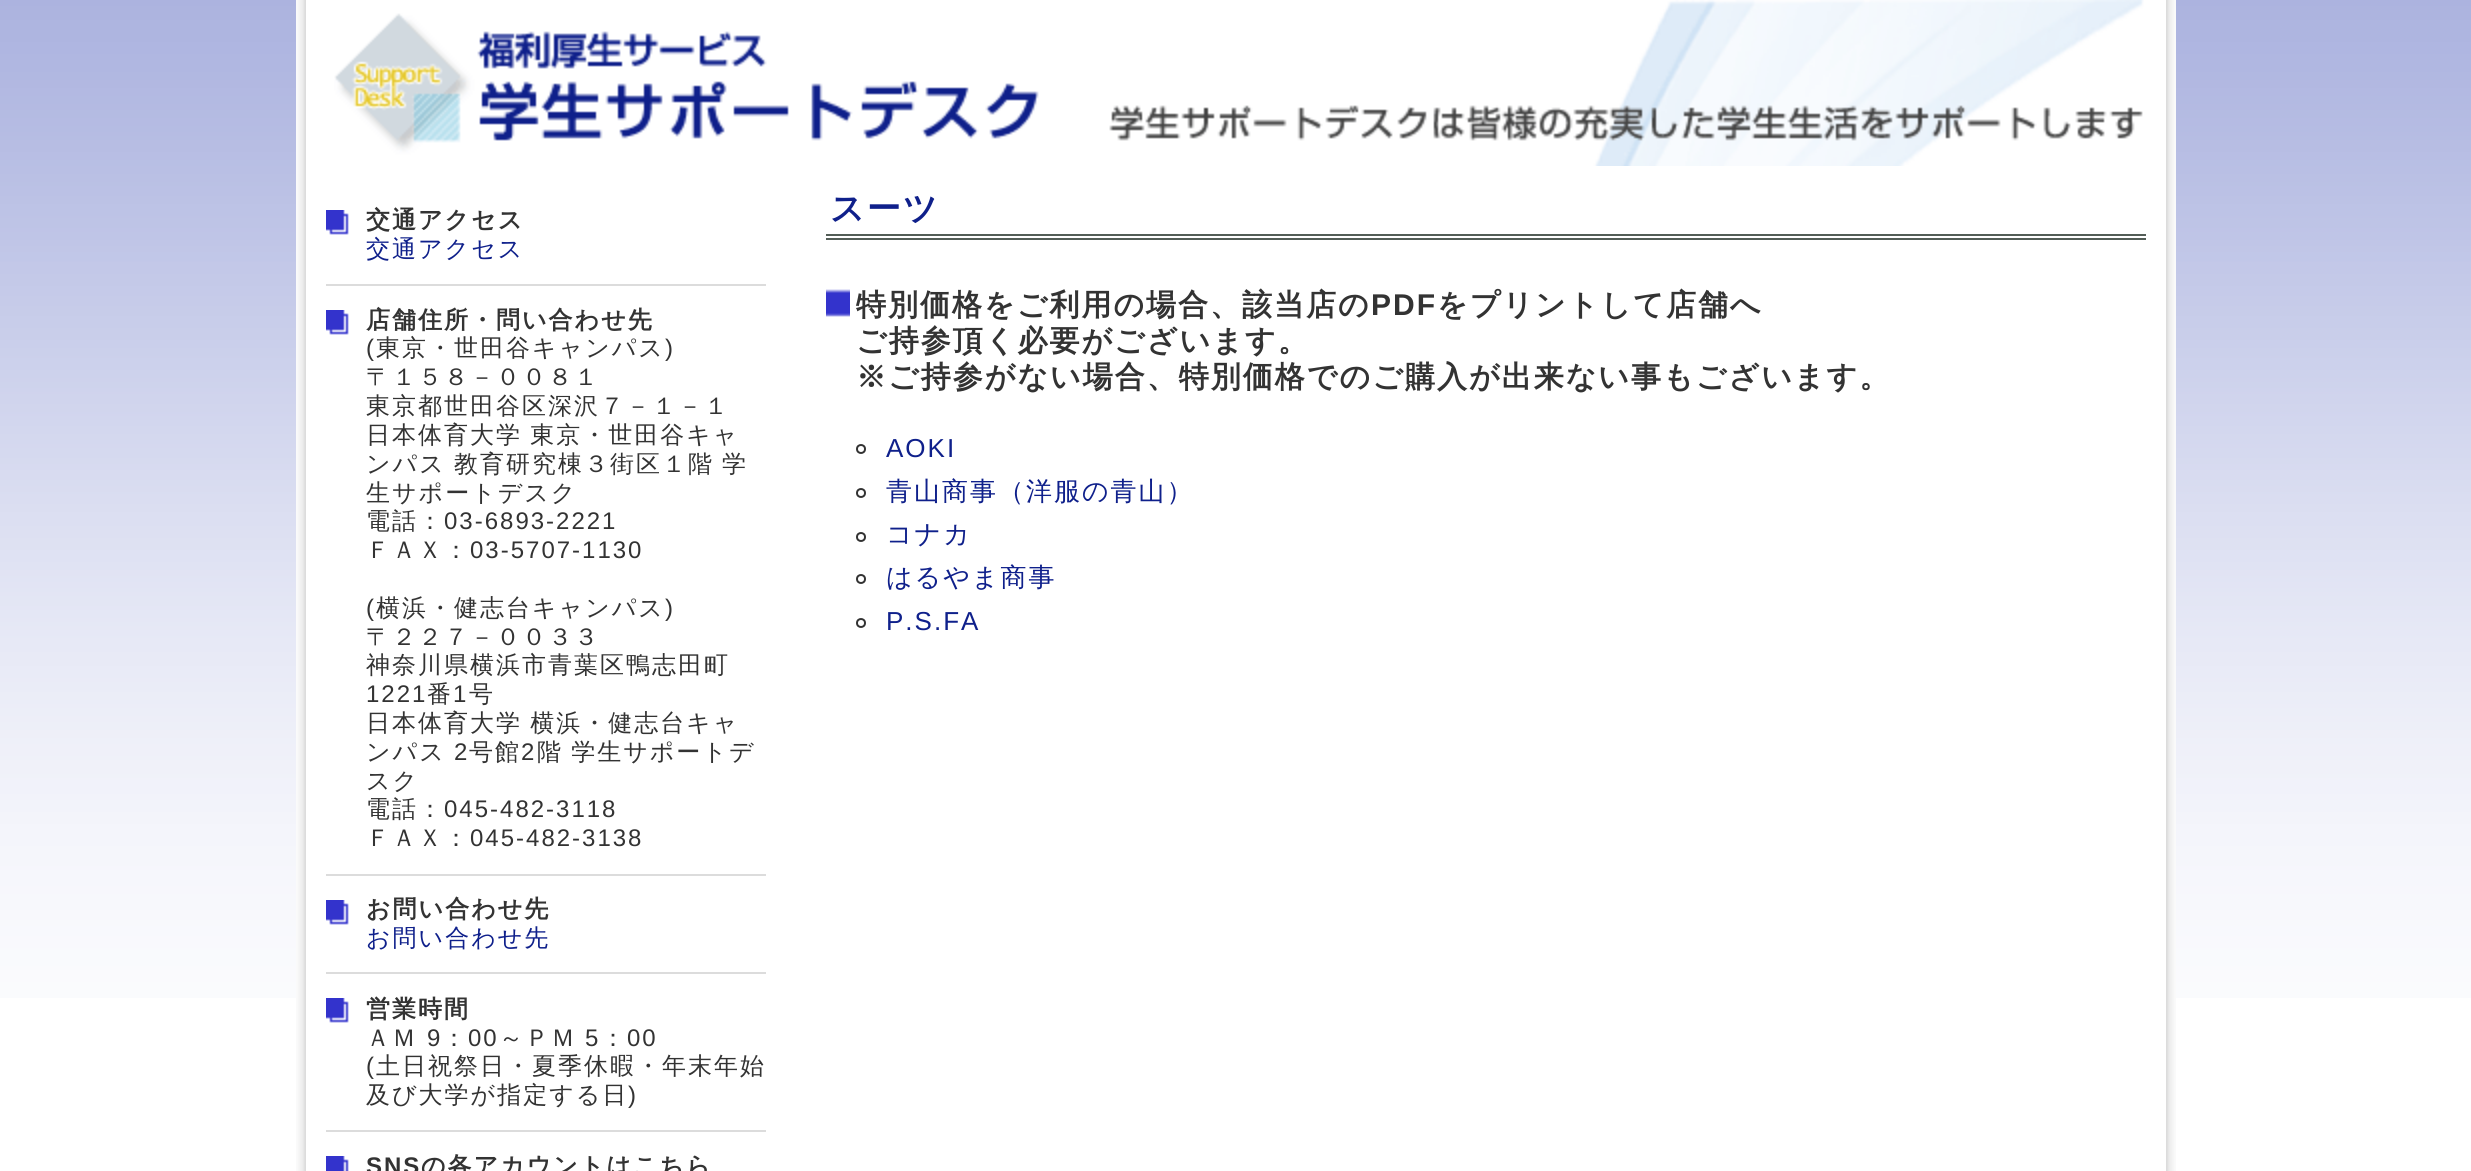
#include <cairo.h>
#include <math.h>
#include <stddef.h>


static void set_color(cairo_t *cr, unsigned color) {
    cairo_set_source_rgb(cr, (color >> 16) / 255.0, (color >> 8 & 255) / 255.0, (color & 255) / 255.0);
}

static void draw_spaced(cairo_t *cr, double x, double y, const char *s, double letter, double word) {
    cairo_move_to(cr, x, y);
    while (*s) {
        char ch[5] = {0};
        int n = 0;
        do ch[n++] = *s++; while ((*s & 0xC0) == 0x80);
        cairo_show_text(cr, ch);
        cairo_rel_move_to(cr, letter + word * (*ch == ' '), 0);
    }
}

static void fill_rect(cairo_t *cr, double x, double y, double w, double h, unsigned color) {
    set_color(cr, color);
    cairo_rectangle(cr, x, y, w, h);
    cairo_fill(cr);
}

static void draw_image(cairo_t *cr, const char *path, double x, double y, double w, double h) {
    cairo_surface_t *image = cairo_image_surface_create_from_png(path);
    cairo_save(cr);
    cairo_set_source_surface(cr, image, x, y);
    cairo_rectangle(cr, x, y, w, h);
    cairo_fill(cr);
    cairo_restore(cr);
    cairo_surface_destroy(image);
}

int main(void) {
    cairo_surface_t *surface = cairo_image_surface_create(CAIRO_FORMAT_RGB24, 2471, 1171);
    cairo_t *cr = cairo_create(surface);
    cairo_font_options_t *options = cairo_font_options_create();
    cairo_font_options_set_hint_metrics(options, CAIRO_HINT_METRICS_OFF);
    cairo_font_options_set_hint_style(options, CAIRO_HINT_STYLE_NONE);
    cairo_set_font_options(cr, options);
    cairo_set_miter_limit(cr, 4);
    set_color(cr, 0xFFFFFF);
    cairo_paint(cr);
    draw_image(cr, "assets/img1.png", 0, 0, 2471, 998);
    fill_rect(cr, 306, 0, 1860, 998, 0xFFFFFF);
    draw_image(cr, "assets/img2.png", 296, 0, 10, 1171);
    draw_image(cr, "assets/img3.png", 2166, 0, 10, 1171);
    draw_image(cr, "assets/img4.png", 334, 0, 1810, 166);
    draw_image(cr, "assets/img5.png", 326, 210, 23, 25);
    fill_rect(cr, 326, 284, 440, 2, 0xDCDCDC);
    cairo_select_font_face(cr, "WenQuanYi Zen Hei", CAIRO_FONT_SLANT_NORMAL, CAIRO_FONT_WEIGHT_BOLD);
    cairo_set_font_size(cr, 24);
    set_color(cr, 0x333333);
    draw_spaced(cr, 366, 228, "交通アクセス", 2, 0);
    cairo_select_font_face(cr, "WenQuanYi Zen Hei Medium", CAIRO_FONT_SLANT_NORMAL, CAIRO_FONT_WEIGHT_NORMAL);
    set_color(cr, 0x0F208B);
    draw_spaced(cr, 366, 257, "交通アクセス", 2, 0);
    draw_image(cr, "assets/img5.png", 326, 310, 23, 25);
    fill_rect(cr, 326, 874, 440, 2, 0xDCDCDC);
    cairo_select_font_face(cr, "WenQuanYi Zen Hei", CAIRO_FONT_SLANT_NORMAL, CAIRO_FONT_WEIGHT_BOLD);
    set_color(cr, 0x333333);
    draw_spaced(cr, 366, 328, "店舗住所・問い合わせ先", 2, 0);
    cairo_select_font_face(cr, "Liberation Sans", CAIRO_FONT_SLANT_NORMAL, CAIRO_FONT_WEIGHT_NORMAL);
    draw_spaced(cr, 366, 356, "(", 2, 0);
    cairo_select_font_face(cr, "WenQuanYi Zen Hei Medium", CAIRO_FONT_SLANT_NORMAL, CAIRO_FONT_WEIGHT_NORMAL);
    draw_spaced(cr, 376, 356, "東京・世田谷キャンパス", 2, 0);
    cairo_select_font_face(cr, "Liberation Sans", CAIRO_FONT_SLANT_NORMAL, CAIRO_FONT_WEIGHT_NORMAL);
    draw_spaced(cr, 665, 356, ")", 2, 0);
    cairo_select_font_face(cr, "WenQuanYi Zen Hei Medium", CAIRO_FONT_SLANT_NORMAL, CAIRO_FONT_WEIGHT_NORMAL);
    draw_spaced(cr, 366, 385, "〒１５８－００８１", 2, 0);
    draw_spaced(cr, 366, 414, "東京都世田谷区深沢７－１－１", 2, 0);
    draw_spaced(cr, 366, 443, "日本体育大学 東京・世田谷キャ", 2, -1);
    draw_spaced(cr, 366, 472, "ンパス 教育研究棟３街区１階 学", 2, -1);
    draw_spaced(cr, 366, 501, "生サポートデスク", 2, 0);
    draw_spaced(cr, 366, 529, "電話：", 2, 0);
    cairo_select_font_face(cr, "Liberation Sans", CAIRO_FONT_SLANT_NORMAL, CAIRO_FONT_WEIGHT_NORMAL);
    draw_spaced(cr, 444, 529, "03-6893-2221", 2, 0);
    cairo_select_font_face(cr, "WenQuanYi Zen Hei Medium", CAIRO_FONT_SLANT_NORMAL, CAIRO_FONT_WEIGHT_NORMAL);
    draw_spaced(cr, 366, 558, "ＦＡＸ：", 2, 0);
    cairo_select_font_face(cr, "Liberation Sans", CAIRO_FONT_SLANT_NORMAL, CAIRO_FONT_WEIGHT_NORMAL);
    draw_spaced(cr, 470, 558, "03-5707-1130", 2, 0);
    draw_spaced(cr, 366, 616, "(", 2, 0);
    cairo_select_font_face(cr, "WenQuanYi Zen Hei Medium", CAIRO_FONT_SLANT_NORMAL, CAIRO_FONT_WEIGHT_NORMAL);
    draw_spaced(cr, 376, 616, "横浜・健志台キャンパス", 2, 0);
    cairo_select_font_face(cr, "Liberation Sans", CAIRO_FONT_SLANT_NORMAL, CAIRO_FONT_WEIGHT_NORMAL);
    draw_spaced(cr, 665, 616, ")", 2, 0);
    cairo_select_font_face(cr, "WenQuanYi Zen Hei Medium", CAIRO_FONT_SLANT_NORMAL, CAIRO_FONT_WEIGHT_NORMAL);
    draw_spaced(cr, 366, 645, "〒２２７－００３３", 2, 0);
    draw_spaced(cr, 366, 673, "神奈川県横浜市青葉区鴨志田町", 2, 0);
    cairo_select_font_face(cr, "Liberation Sans", CAIRO_FONT_SLANT_NORMAL, CAIRO_FONT_WEIGHT_NORMAL);
    draw_spaced(cr, 366, 702, "1221", 2, 0);
    cairo_select_font_face(cr, "WenQuanYi Zen Hei Medium", CAIRO_FONT_SLANT_NORMAL, CAIRO_FONT_WEIGHT_NORMAL);
    draw_spaced(cr, 427, 702, "番", 2, 0);
    cairo_select_font_face(cr, "Liberation Sans", CAIRO_FONT_SLANT_NORMAL, CAIRO_FONT_WEIGHT_NORMAL);
    draw_spaced(cr, 453, 702, "1", 2, 0);
    cairo_select_font_face(cr, "WenQuanYi Zen Hei Medium", CAIRO_FONT_SLANT_NORMAL, CAIRO_FONT_WEIGHT_NORMAL);
    draw_spaced(cr, 469, 702, "号", 2, 0);
    draw_spaced(cr, 366, 731, "日本体育大学 横浜・健志台キャ", 2, -1);
    draw_spaced(cr, 366, 760, "ンパス", 2, 0);
    cairo_select_font_face(cr, "Liberation Sans", CAIRO_FONT_SLANT_NORMAL, CAIRO_FONT_WEIGHT_NORMAL);
    draw_spaced(cr, 454, 760, "2", 2, 0);
    cairo_select_font_face(cr, "WenQuanYi Zen Hei Medium", CAIRO_FONT_SLANT_NORMAL, CAIRO_FONT_WEIGHT_NORMAL);
    draw_spaced(cr, 469, 760, "号館", 2, 0);
    cairo_select_font_face(cr, "Liberation Sans", CAIRO_FONT_SLANT_NORMAL, CAIRO_FONT_WEIGHT_NORMAL);
    draw_spaced(cr, 521, 760, "2", 2, 0);
    cairo_select_font_face(cr, "WenQuanYi Zen Hei Medium", CAIRO_FONT_SLANT_NORMAL, CAIRO_FONT_WEIGHT_NORMAL);
    draw_spaced(cr, 537, 760, "階 学生サポートデ", 2, -1);
    draw_spaced(cr, 366, 789, "スク", 2, 0);
    draw_spaced(cr, 366, 817, "電話：", 2, 0);
    cairo_select_font_face(cr, "Liberation Sans", CAIRO_FONT_SLANT_NORMAL, CAIRO_FONT_WEIGHT_NORMAL);
    draw_spaced(cr, 444, 817, "045-482-3118", 2, 0);
    cairo_select_font_face(cr, "WenQuanYi Zen Hei Medium", CAIRO_FONT_SLANT_NORMAL, CAIRO_FONT_WEIGHT_NORMAL);
    draw_spaced(cr, 366, 846, "ＦＡＸ：", 2, 0);
    cairo_select_font_face(cr, "Liberation Sans", CAIRO_FONT_SLANT_NORMAL, CAIRO_FONT_WEIGHT_NORMAL);
    draw_spaced(cr, 470, 846, "045-482-3138", 2, 0);
    draw_image(cr, "assets/img5.png", 326, 900, 23, 25);
    fill_rect(cr, 326, 972, 440, 2, 0xDCDCDC);
    cairo_select_font_face(cr, "WenQuanYi Zen Hei", CAIRO_FONT_SLANT_NORMAL, CAIRO_FONT_WEIGHT_BOLD);
    set_color(cr, 0x333333);
    draw_spaced(cr, 366, 917, "お問い合わせ先", 2, 0);
    cairo_select_font_face(cr, "WenQuanYi Zen Hei Medium", CAIRO_FONT_SLANT_NORMAL, CAIRO_FONT_WEIGHT_NORMAL);
    set_color(cr, 0x0F208B);
    draw_spaced(cr, 366, 946, "お問い合わせ先", 2, 0);
    draw_image(cr, "assets/img5.png", 326, 998, 23, 25);
    fill_rect(cr, 326, 1130, 440, 2, 0xDCDCDC);
    cairo_select_font_face(cr, "WenQuanYi Zen Hei", CAIRO_FONT_SLANT_NORMAL, CAIRO_FONT_WEIGHT_BOLD);
    set_color(cr, 0x333333);
    draw_spaced(cr, 366, 1017, "営業時間", 2, 0);
    cairo_select_font_face(cr, "WenQuanYi Zen Hei Medium", CAIRO_FONT_SLANT_NORMAL, CAIRO_FONT_WEIGHT_NORMAL);
    draw_spaced(cr, 366, 1046, "ＡＭ", 2, 0);
    cairo_select_font_face(cr, "Liberation Sans", CAIRO_FONT_SLANT_NORMAL, CAIRO_FONT_WEIGHT_NORMAL);
    draw_spaced(cr, 427, 1046, "9", 2, 0);
    cairo_select_font_face(cr, "WenQuanYi Zen Hei Medium", CAIRO_FONT_SLANT_NORMAL, CAIRO_FONT_WEIGHT_NORMAL);
    draw_spaced(cr, 442, 1046, "：", 2, 0);
    cairo_select_font_face(cr, "Liberation Sans", CAIRO_FONT_SLANT_NORMAL, CAIRO_FONT_WEIGHT_NORMAL);
    draw_spaced(cr, 468, 1046, "00", 2, 0);
    cairo_select_font_face(cr, "WenQuanYi Zen Hei Medium", CAIRO_FONT_SLANT_NORMAL, CAIRO_FONT_WEIGHT_NORMAL);
    draw_spaced(cr, 499, 1046, "～ＰＭ", 2, 0);
    cairo_select_font_face(cr, "Liberation Sans", CAIRO_FONT_SLANT_NORMAL, CAIRO_FONT_WEIGHT_NORMAL);
    draw_spaced(cr, 585, 1046, "5", 2, 0);
    cairo_select_font_face(cr, "WenQuanYi Zen Hei Medium", CAIRO_FONT_SLANT_NORMAL, CAIRO_FONT_WEIGHT_NORMAL);
    draw_spaced(cr, 601, 1046, "：", 2, 0);
    cairo_select_font_face(cr, "Liberation Sans", CAIRO_FONT_SLANT_NORMAL, CAIRO_FONT_WEIGHT_NORMAL);
    draw_spaced(cr, 627, 1046, "00", 2, 0);
    draw_spaced(cr, 366, 1074, "(", 2, 0);
    cairo_select_font_face(cr, "WenQuanYi Zen Hei Medium", CAIRO_FONT_SLANT_NORMAL, CAIRO_FONT_WEIGHT_NORMAL);
    draw_spaced(cr, 376, 1074, "土日祝祭日・夏季休暇・年末年始", 2, 0);
    draw_spaced(cr, 366, 1103, "及び大学が指定する日", 2, 0);
    cairo_select_font_face(cr, "Liberation Sans", CAIRO_FONT_SLANT_NORMAL, CAIRO_FONT_WEIGHT_NORMAL);
    draw_spaced(cr, 628, 1103, ")", 2, 0);
    draw_image(cr, "assets/img6.png", 326, 1156, 23, 15);
    cairo_select_font_face(cr, "Liberation Sans", CAIRO_FONT_SLANT_NORMAL, CAIRO_FONT_WEIGHT_BOLD);
    draw_spaced(cr, 366, 1174, "SNS", 2, 0);
    cairo_select_font_face(cr, "WenQuanYi Zen Hei", CAIRO_FONT_SLANT_NORMAL, CAIRO_FONT_WEIGHT_BOLD);
    draw_spaced(cr, 421, 1174, "の各アカウントはこちら", 2, 0);
    fill_rect(cr, 826, 234, 1320, 2, 0x535D57);
    fill_rect(cr, 826, 238, 1320, 2, 0x535D57);
    cairo_set_font_size(cr, 34);
    set_color(cr, 0x0F208B);
    draw_spaced(cr, 830, 220, "スーツ", 2, 0);
    draw_image(cr, "assets/img7.png", 826, 289, 24, 28);
    cairo_set_font_size(cr, 30);
    set_color(cr, 0x333333);
    draw_spaced(cr, 856, 315, "特別価格をご利用の場合、該当店の", 2, 0);
    cairo_select_font_face(cr, "Liberation Sans", CAIRO_FONT_SLANT_NORMAL, CAIRO_FONT_WEIGHT_BOLD);
    draw_spaced(cr, 1371, 315, "PDF", 2, 0);
    cairo_select_font_face(cr, "WenQuanYi Zen Hei", CAIRO_FONT_SLANT_NORMAL, CAIRO_FONT_WEIGHT_BOLD);
    draw_spaced(cr, 1437, 315, "をプリントして店舗へ", 2, 0);
    draw_spaced(cr, 856, 351, "ご持参頂く必要がございます。", 2, 0);
    draw_spaced(cr, 856, 387, "※ご持参がない場合、特別価格でのご購入が出来ない事もございます。", 2, 0);
    cairo_new_path(cr);
    cairo_arc(cr, 861, 449, 4, 0, 2 * M_PI);
    cairo_stroke(cr);
    cairo_select_font_face(cr, "Liberation Sans", CAIRO_FONT_SLANT_NORMAL, CAIRO_FONT_WEIGHT_NORMAL);
    cairo_set_font_size(cr, 26);
    set_color(cr, 0x0F208B);
    draw_spaced(cr, 886, 457, "AOKI", 2, 0);
    cairo_new_path(cr);
    cairo_arc(cr, 861, 493, 4, 0, 2 * M_PI);
    set_color(cr, 0x333333);
    cairo_stroke(cr);
    cairo_select_font_face(cr, "WenQuanYi Zen Hei Medium", CAIRO_FONT_SLANT_NORMAL, CAIRO_FONT_WEIGHT_NORMAL);
    set_color(cr, 0x0F208B);
    draw_spaced(cr, 886, 500, "青山商事（洋服の青山）", 2, 0);
    cairo_new_path(cr);
    cairo_arc(cr, 861, 537, 4, 0, 2 * M_PI);
    set_color(cr, 0x333333);
    cairo_stroke(cr);
    set_color(cr, 0x0F208B);
    draw_spaced(cr, 886, 543, "コナカ", 2, 0);
    cairo_new_path(cr);
    cairo_arc(cr, 861, 579, 4, 0, 2 * M_PI);
    set_color(cr, 0x333333);
    cairo_stroke(cr);
    set_color(cr, 0x0F208B);
    draw_spaced(cr, 886, 586, "はるやま商事", 2, 0);
    cairo_new_path(cr);
    cairo_arc(cr, 861, 623, 4, 0, 2 * M_PI);
    set_color(cr, 0x333333);
    cairo_stroke(cr);
    cairo_select_font_face(cr, "Liberation Sans", CAIRO_FONT_SLANT_NORMAL, CAIRO_FONT_WEIGHT_NORMAL);
    set_color(cr, 0x0F208B);
    draw_spaced(cr, 886, 630, "P.S.FA", 2, 0);
    cairo_surface_write_to_png(surface, "output.png");
    cairo_font_options_destroy(options);
    cairo_destroy(cr);
    cairo_surface_destroy(surface);
    return 0;
}
